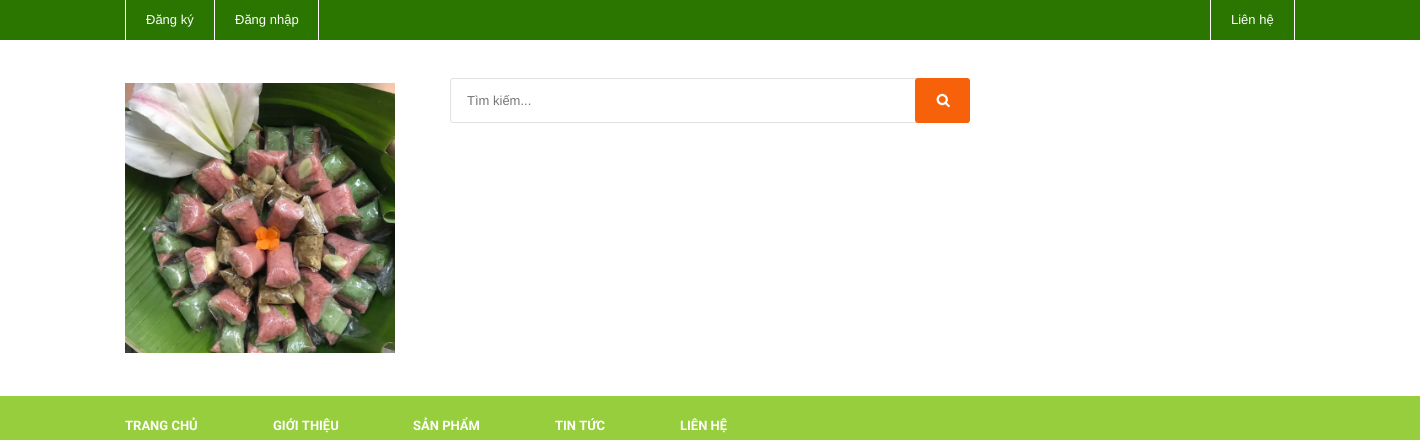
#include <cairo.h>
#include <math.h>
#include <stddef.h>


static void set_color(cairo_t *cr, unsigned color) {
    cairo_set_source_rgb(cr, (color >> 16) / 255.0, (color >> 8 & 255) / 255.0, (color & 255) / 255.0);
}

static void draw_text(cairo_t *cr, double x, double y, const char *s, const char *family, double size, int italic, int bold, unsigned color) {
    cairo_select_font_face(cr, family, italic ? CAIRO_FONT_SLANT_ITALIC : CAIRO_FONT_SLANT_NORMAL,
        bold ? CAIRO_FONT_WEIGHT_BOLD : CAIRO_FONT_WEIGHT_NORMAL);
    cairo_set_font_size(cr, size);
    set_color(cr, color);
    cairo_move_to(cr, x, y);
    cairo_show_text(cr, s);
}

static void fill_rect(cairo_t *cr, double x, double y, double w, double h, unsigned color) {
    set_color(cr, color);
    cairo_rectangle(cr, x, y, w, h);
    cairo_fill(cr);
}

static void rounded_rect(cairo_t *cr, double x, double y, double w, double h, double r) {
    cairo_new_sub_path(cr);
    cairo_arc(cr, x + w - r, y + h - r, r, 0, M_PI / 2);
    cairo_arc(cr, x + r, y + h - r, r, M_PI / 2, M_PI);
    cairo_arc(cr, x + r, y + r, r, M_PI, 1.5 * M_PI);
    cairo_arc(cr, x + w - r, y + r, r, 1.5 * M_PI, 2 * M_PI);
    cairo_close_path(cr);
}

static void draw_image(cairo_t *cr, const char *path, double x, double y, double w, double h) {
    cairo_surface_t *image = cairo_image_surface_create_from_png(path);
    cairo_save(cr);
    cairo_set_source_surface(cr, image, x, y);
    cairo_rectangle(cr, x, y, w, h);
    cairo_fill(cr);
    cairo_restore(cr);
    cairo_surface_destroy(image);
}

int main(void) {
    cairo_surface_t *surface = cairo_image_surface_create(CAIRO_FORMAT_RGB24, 1420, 440);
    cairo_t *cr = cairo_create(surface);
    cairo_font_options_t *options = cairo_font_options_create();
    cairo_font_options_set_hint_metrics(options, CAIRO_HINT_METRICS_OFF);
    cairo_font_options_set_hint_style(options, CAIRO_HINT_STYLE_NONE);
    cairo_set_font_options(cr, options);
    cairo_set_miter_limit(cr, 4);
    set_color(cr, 0xFFFFFF);
    cairo_paint(cr);
    fill_rect(cr, 0, 0, 1420, 40, 0x2A7600);
    fill_rect(cr, 214, 0, 1, 40, 0xFFFFFF);
    fill_rect(cr, 125, 0, 1, 40, 0xFFFFFF);
    draw_text(cr, 146, 24, "Đăng ký", "Liberation Sans", 13, 0, 0, 0xFFFFFF);
    fill_rect(cr, 318, 0, 1, 40, 0xFFFFFF);
    draw_text(cr, 235, 24, "Đăng nhập", "Liberation Sans", 13, 0, 0, 0xFFFFFF);
    fill_rect(cr, 1294, 0, 1, 40, 0xFFFFFF);
    fill_rect(cr, 1210, 0, 1, 40, 0xFFFFFF);
    draw_text(cr, 1231, 24, "Liên hệ", "Liberation Sans", 13, 0, 0, 0xFFFFFF);
    draw_image(cr, "assets/img1.png", 125, 83, 270, 270);
    rounded_rect(cr, 450.5, 78.5, 519, 44, 2.5);
    set_color(cr, 0xE1E1E1);
    cairo_set_line_width(cr, 1);
    cairo_stroke(cr);
    draw_text(cr, 467, 105, "Tìm kiếm...", "Liberation Sans", 13, 0, 0, 0x757575);
    set_color(cr, 0xF66109);
    rounded_rect(cr, 915, 78, 55, 45, 3);
    cairo_fill(cr);
    draw_image(cr, "assets/img2.png", 936, 93, 14, 15);
    fill_rect(cr, 0, 396, 1420, 44, 0x96CE3D);
    draw_text(cr, 125, 430, "TRANG CHỦ", "Roboto", 13, 0, 1, 0xFFFFFF);
    draw_text(cr, 273, 430, "GIỚI THIỆU", "Roboto", 13, 0, 1, 0xFFFFFF);
    draw_text(cr, 413, 430, "SẢN PHẨM", "Roboto", 13, 0, 1, 0xFFFFFF);
    draw_text(cr, 555, 430, "TIN TỨC", "Roboto", 13, 0, 1, 0xFFFFFF);
    draw_text(cr, 680, 430, "LIÊN HỆ", "Roboto", 13, 0, 1, 0xFFFFFF);
    cairo_surface_write_to_png(surface, "output.png");
    cairo_font_options_destroy(options);
    cairo_destroy(cr);
    cairo_surface_destroy(surface);
    return 0;
}
